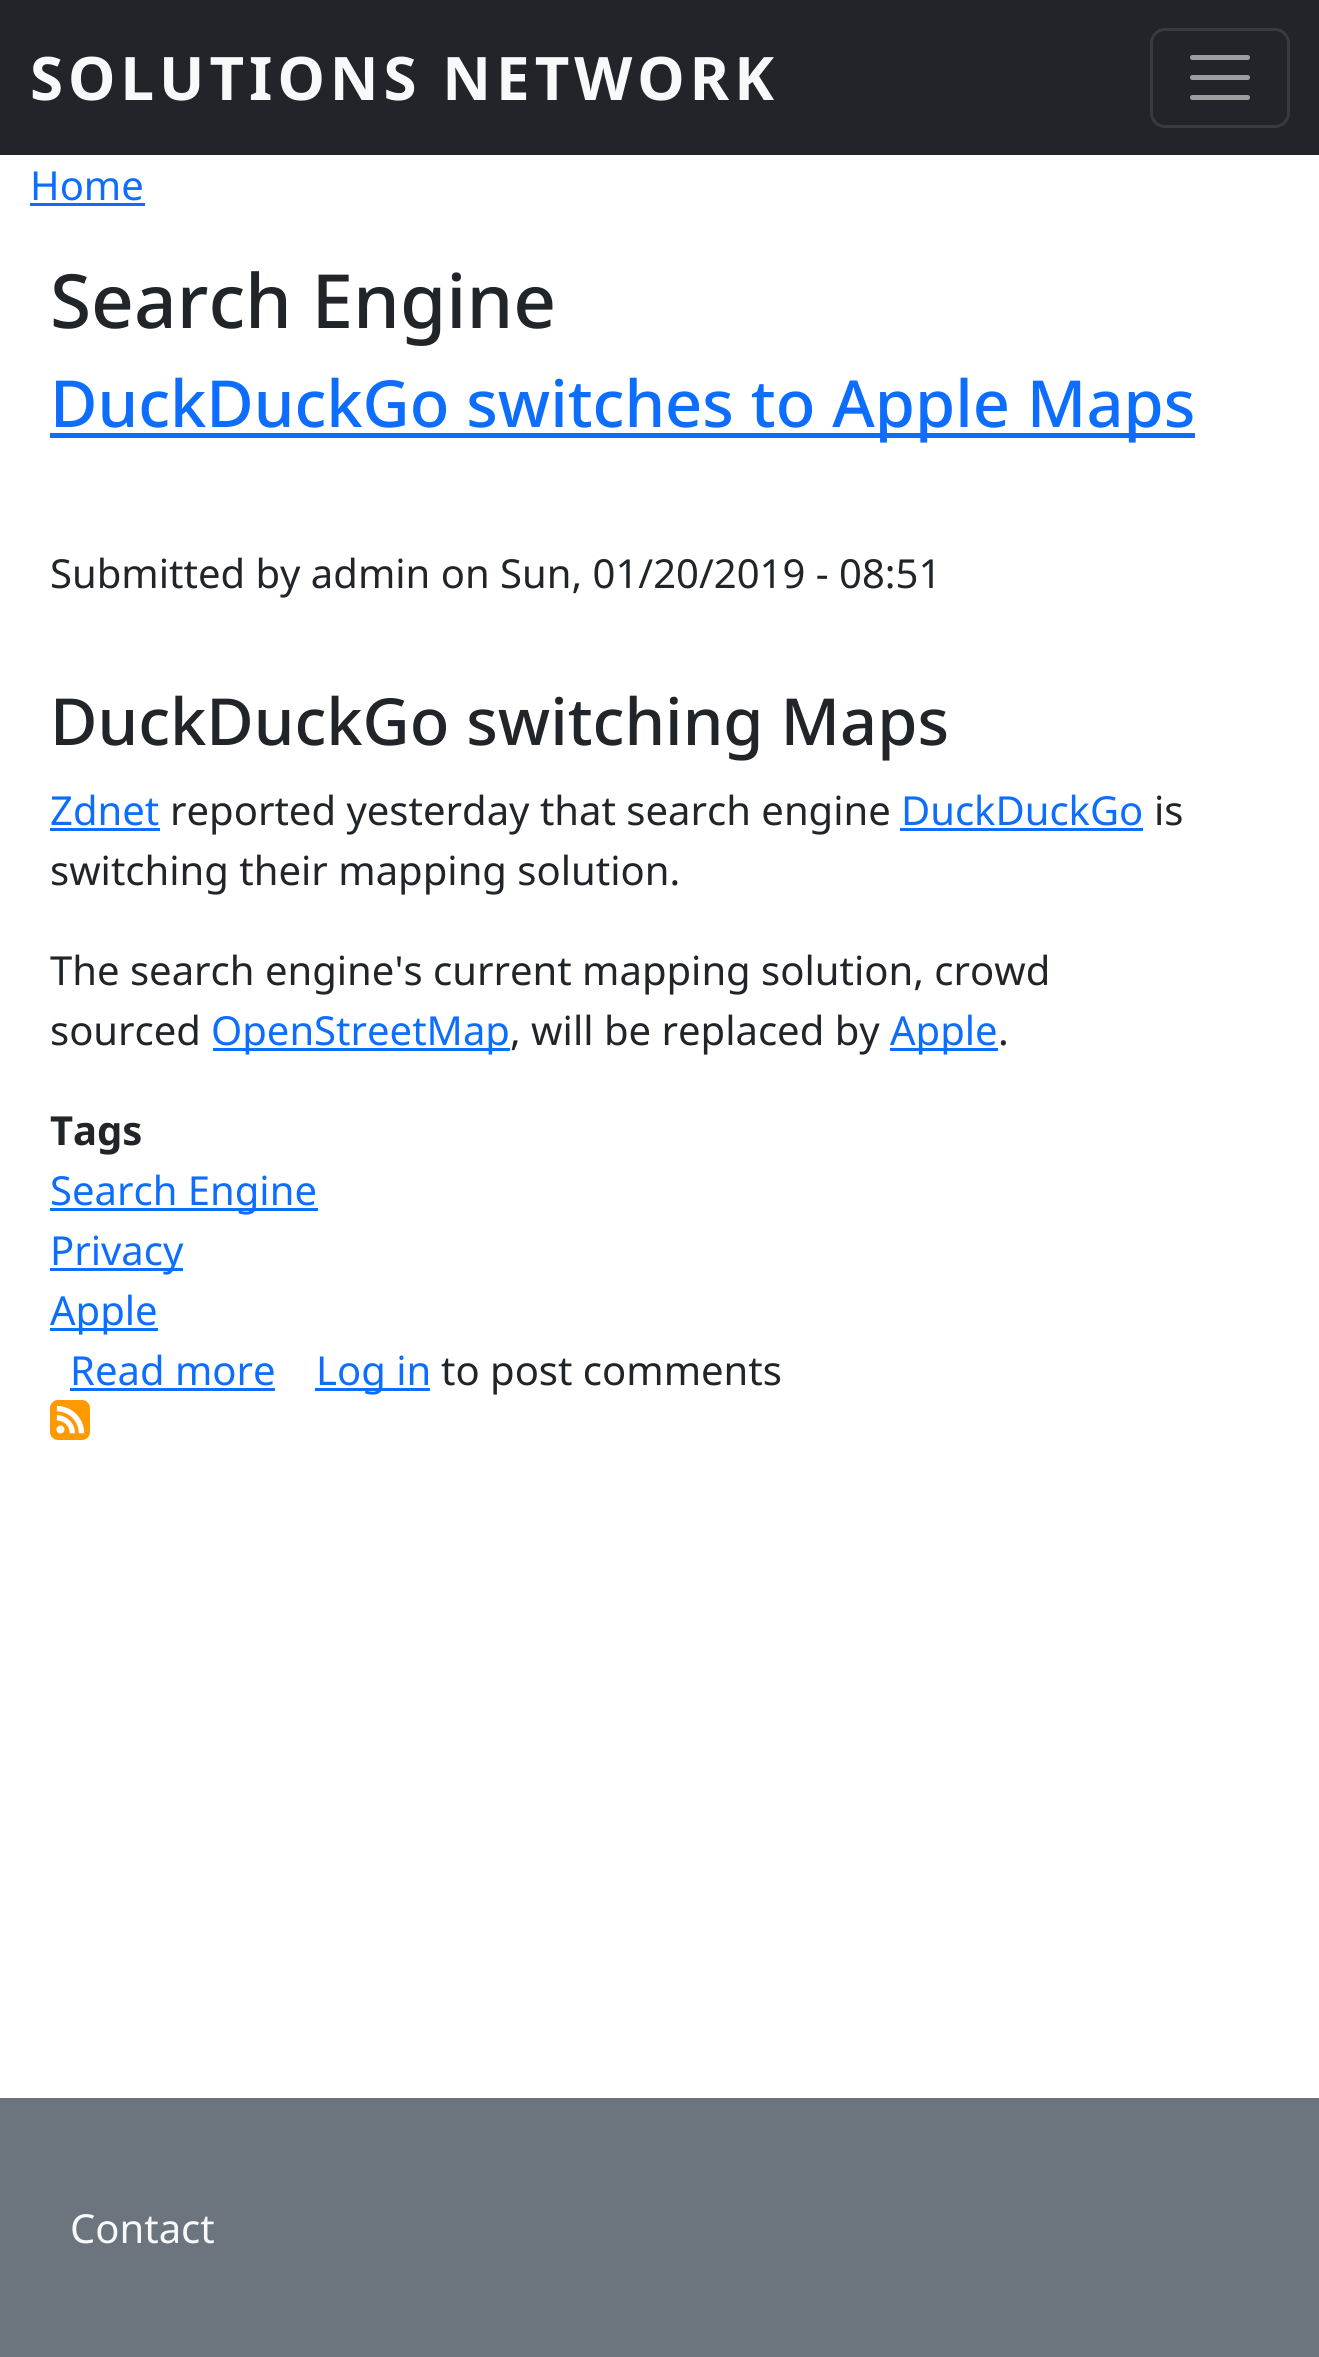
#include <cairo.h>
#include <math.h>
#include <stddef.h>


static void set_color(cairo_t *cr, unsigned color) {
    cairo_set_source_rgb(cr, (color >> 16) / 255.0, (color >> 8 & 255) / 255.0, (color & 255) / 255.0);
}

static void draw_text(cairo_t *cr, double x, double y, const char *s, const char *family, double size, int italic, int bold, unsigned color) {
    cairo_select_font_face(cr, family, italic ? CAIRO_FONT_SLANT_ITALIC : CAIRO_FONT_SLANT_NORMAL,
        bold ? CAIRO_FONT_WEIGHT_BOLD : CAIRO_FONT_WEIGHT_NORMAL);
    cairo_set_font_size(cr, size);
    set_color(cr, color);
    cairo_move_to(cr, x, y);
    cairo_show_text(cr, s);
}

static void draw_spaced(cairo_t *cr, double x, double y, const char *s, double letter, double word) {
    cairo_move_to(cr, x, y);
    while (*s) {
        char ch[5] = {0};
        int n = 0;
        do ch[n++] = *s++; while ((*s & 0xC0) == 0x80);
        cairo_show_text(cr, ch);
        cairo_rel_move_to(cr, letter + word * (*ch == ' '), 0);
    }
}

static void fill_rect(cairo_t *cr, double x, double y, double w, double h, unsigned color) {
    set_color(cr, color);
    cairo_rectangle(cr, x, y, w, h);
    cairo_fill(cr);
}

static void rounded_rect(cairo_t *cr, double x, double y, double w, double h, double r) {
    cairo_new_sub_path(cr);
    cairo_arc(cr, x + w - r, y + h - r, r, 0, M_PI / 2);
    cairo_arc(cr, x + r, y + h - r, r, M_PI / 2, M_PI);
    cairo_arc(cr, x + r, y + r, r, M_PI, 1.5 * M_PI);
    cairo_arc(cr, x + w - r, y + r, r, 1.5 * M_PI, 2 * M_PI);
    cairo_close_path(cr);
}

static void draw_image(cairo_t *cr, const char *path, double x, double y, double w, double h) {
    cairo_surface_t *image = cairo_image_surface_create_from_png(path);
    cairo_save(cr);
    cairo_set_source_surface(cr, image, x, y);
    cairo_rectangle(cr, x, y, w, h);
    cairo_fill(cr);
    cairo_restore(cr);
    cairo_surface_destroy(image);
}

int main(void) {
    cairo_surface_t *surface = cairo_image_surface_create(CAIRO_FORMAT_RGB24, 1319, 2357);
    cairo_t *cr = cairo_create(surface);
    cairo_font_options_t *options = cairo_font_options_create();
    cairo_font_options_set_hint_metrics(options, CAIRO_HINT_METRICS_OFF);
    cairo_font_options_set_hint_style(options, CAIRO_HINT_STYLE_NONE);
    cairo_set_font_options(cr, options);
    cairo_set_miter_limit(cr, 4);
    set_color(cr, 0xFFFFFF);
    cairo_paint(cr);
    fill_rect(cr, 0, 0, 1319, 155, 0x212529);
    cairo_select_font_face(cr, "Noto Sans", CAIRO_FONT_SLANT_NORMAL, CAIRO_FONT_WEIGHT_BOLD);
    cairo_set_font_size(cr, 60);
    set_color(cr, 0xF8F9FA);
    draw_spaced(cr, 30, 100, "SOLUTIONS NETWORK", 5, 0);
    rounded_rect(cr, 1151.5, 29.5, 137, 97, 13.5);
    set_color(cr, 0x373B3E);
    cairo_set_line_width(cr, 3);
    cairo_stroke(cr);
    cairo_new_path(cr);
    cairo_move_to(cr, 1192.5, 57.5);
    cairo_line_to(cr, 1247.5, 57.5);
    cairo_move_to(cr, 1192.5, 77.5);
    cairo_line_to(cr, 1247.5, 77.5);
    cairo_move_to(cr, 1192.5, 97.5);
    cairo_line_to(cr, 1247.5, 97.5);
    set_color(cr, 0x9B9D9F);
    cairo_set_line_width(cr, 5);
    cairo_set_line_cap(cr, CAIRO_LINE_CAP_ROUND);
    cairo_stroke(cr);
    draw_text(cr, 30, 200, "Home", "Noto Sans", 40, 0, 0, 0x0D6EFD);
    fill_rect(cr, 30, 203, 115, 3, 0x0D6EFD);
    draw_text(cr, 50, 328, "Search Engine", "Noto Sans Medium", 74.75, 0, 0, 0x212529);
    fill_rect(cr, 50, 433, 1145, 5, 0x0D6EFD);
    draw_text(cr, 50, 427, "DuckDuckGo switches to Apple Maps", "Noto Sans Medium", 64.9, 0, 0, 0x0D6EFD);
    draw_text(cr, 50, 588, "Submitted by admin on Sun, 01/20/2019 - 08:51", "Noto Sans", 40, 0, 0, 0x212529);
    draw_text(cr, 50, 745, "DuckDuckGo switching Maps", "Noto Sans Medium", 64.9, 0, 0, 0x212529);
    draw_text(cr, 50, 825, "Zdnet", "Noto Sans", 40, 0, 0, 0x0D6EFD);
    fill_rect(cr, 50, 828, 110, 3, 0x0D6EFD);
    draw_text(cr, 170, 825, "reported yesterday that search engine", "Noto Sans", 40, 0, 0, 0x212529);
    draw_text(cr, 901, 825, "DuckDuckGo", "Noto Sans", 40, 0, 0, 0x0D6EFD);
    fill_rect(cr, 900, 828, 243, 3, 0x0D6EFD);
    draw_text(cr, 1154, 825, "is", "Noto Sans", 40, 0, 0, 0x212529);
    draw_text(cr, 50, 885, "switching their mapping solution.", "Noto Sans", 40, 0, 0, 0x212529);
    draw_text(cr, 50, 985, "The search engine's current mapping solution, crowd", "Noto Sans", 40, 0, 0, 0x212529);
    draw_text(cr, 50, 1045, "sourced", "Noto Sans", 40, 0, 0, 0x212529);
    fill_rect(cr, 213, 1048, 297, 3, 0x0D6EFD);
    draw_text(cr, 211, 1045, "OpenStreetMap", "Noto Sans", 40, 0, 0, 0x0D6EFD);
    draw_text(cr, 510, 1045, ", will be replaced by", "Noto Sans", 40, 0, 0, 0x212529);
    fill_rect(cr, 890, 1048, 108, 3, 0x0D6EFD);
    draw_text(cr, 890, 1045, "Apple", "Noto Sans", 40, 0, 0, 0x0D6EFD);
    draw_text(cr, 998, 1045, ".", "Noto Sans", 40, 0, 0, 0x212529);
    draw_text(cr, 50, 1145, "Tags", "Noto Sans", 40, 0, 1, 0x212529);
    fill_rect(cr, 50, 1208, 268, 3, 0x0D6EFD);
    draw_text(cr, 50, 1205, "Search Engine", "Noto Sans", 40, 0, 0, 0x0D6EFD);
    fill_rect(cr, 50, 1268, 133, 3, 0x0D6EFD);
    draw_text(cr, 50, 1265, "Privacy", "Noto Sans", 40, 0, 0, 0x0D6EFD);
    fill_rect(cr, 50, 1328, 108, 3, 0x0D6EFD);
    draw_text(cr, 50, 1325, "Apple", "Noto Sans", 40, 0, 0, 0x0D6EFD);
    draw_text(cr, 70, 1385, "Read more", "Noto Sans", 40, 0, 0, 0x0D6EFD);
    fill_rect(cr, 70, 1388, 205, 3, 0x0D6EFD);
    fill_rect(cr, 315, 1388, 115, 3, 0x0D6EFD);
    draw_text(cr, 316, 1385, "Log in", "Noto Sans", 40, 0, 0, 0x0D6EFD);
    draw_text(cr, 441, 1385, "to post comments", "Noto Sans", 40, 0, 0, 0x212529);
    draw_image(cr, "assets/img1.png", 50, 1400, 40, 40);
    fill_rect(cr, 0, 2098, 1319, 259, 0x6C757D);
    draw_text(cr, 70, 2243, "Contact", "Noto Sans", 40, 0, 0, 0xF8F9FA);
    cairo_surface_write_to_png(surface, "output.png");
    cairo_font_options_destroy(options);
    cairo_destroy(cr);
    cairo_surface_destroy(surface);
    return 0;
}
